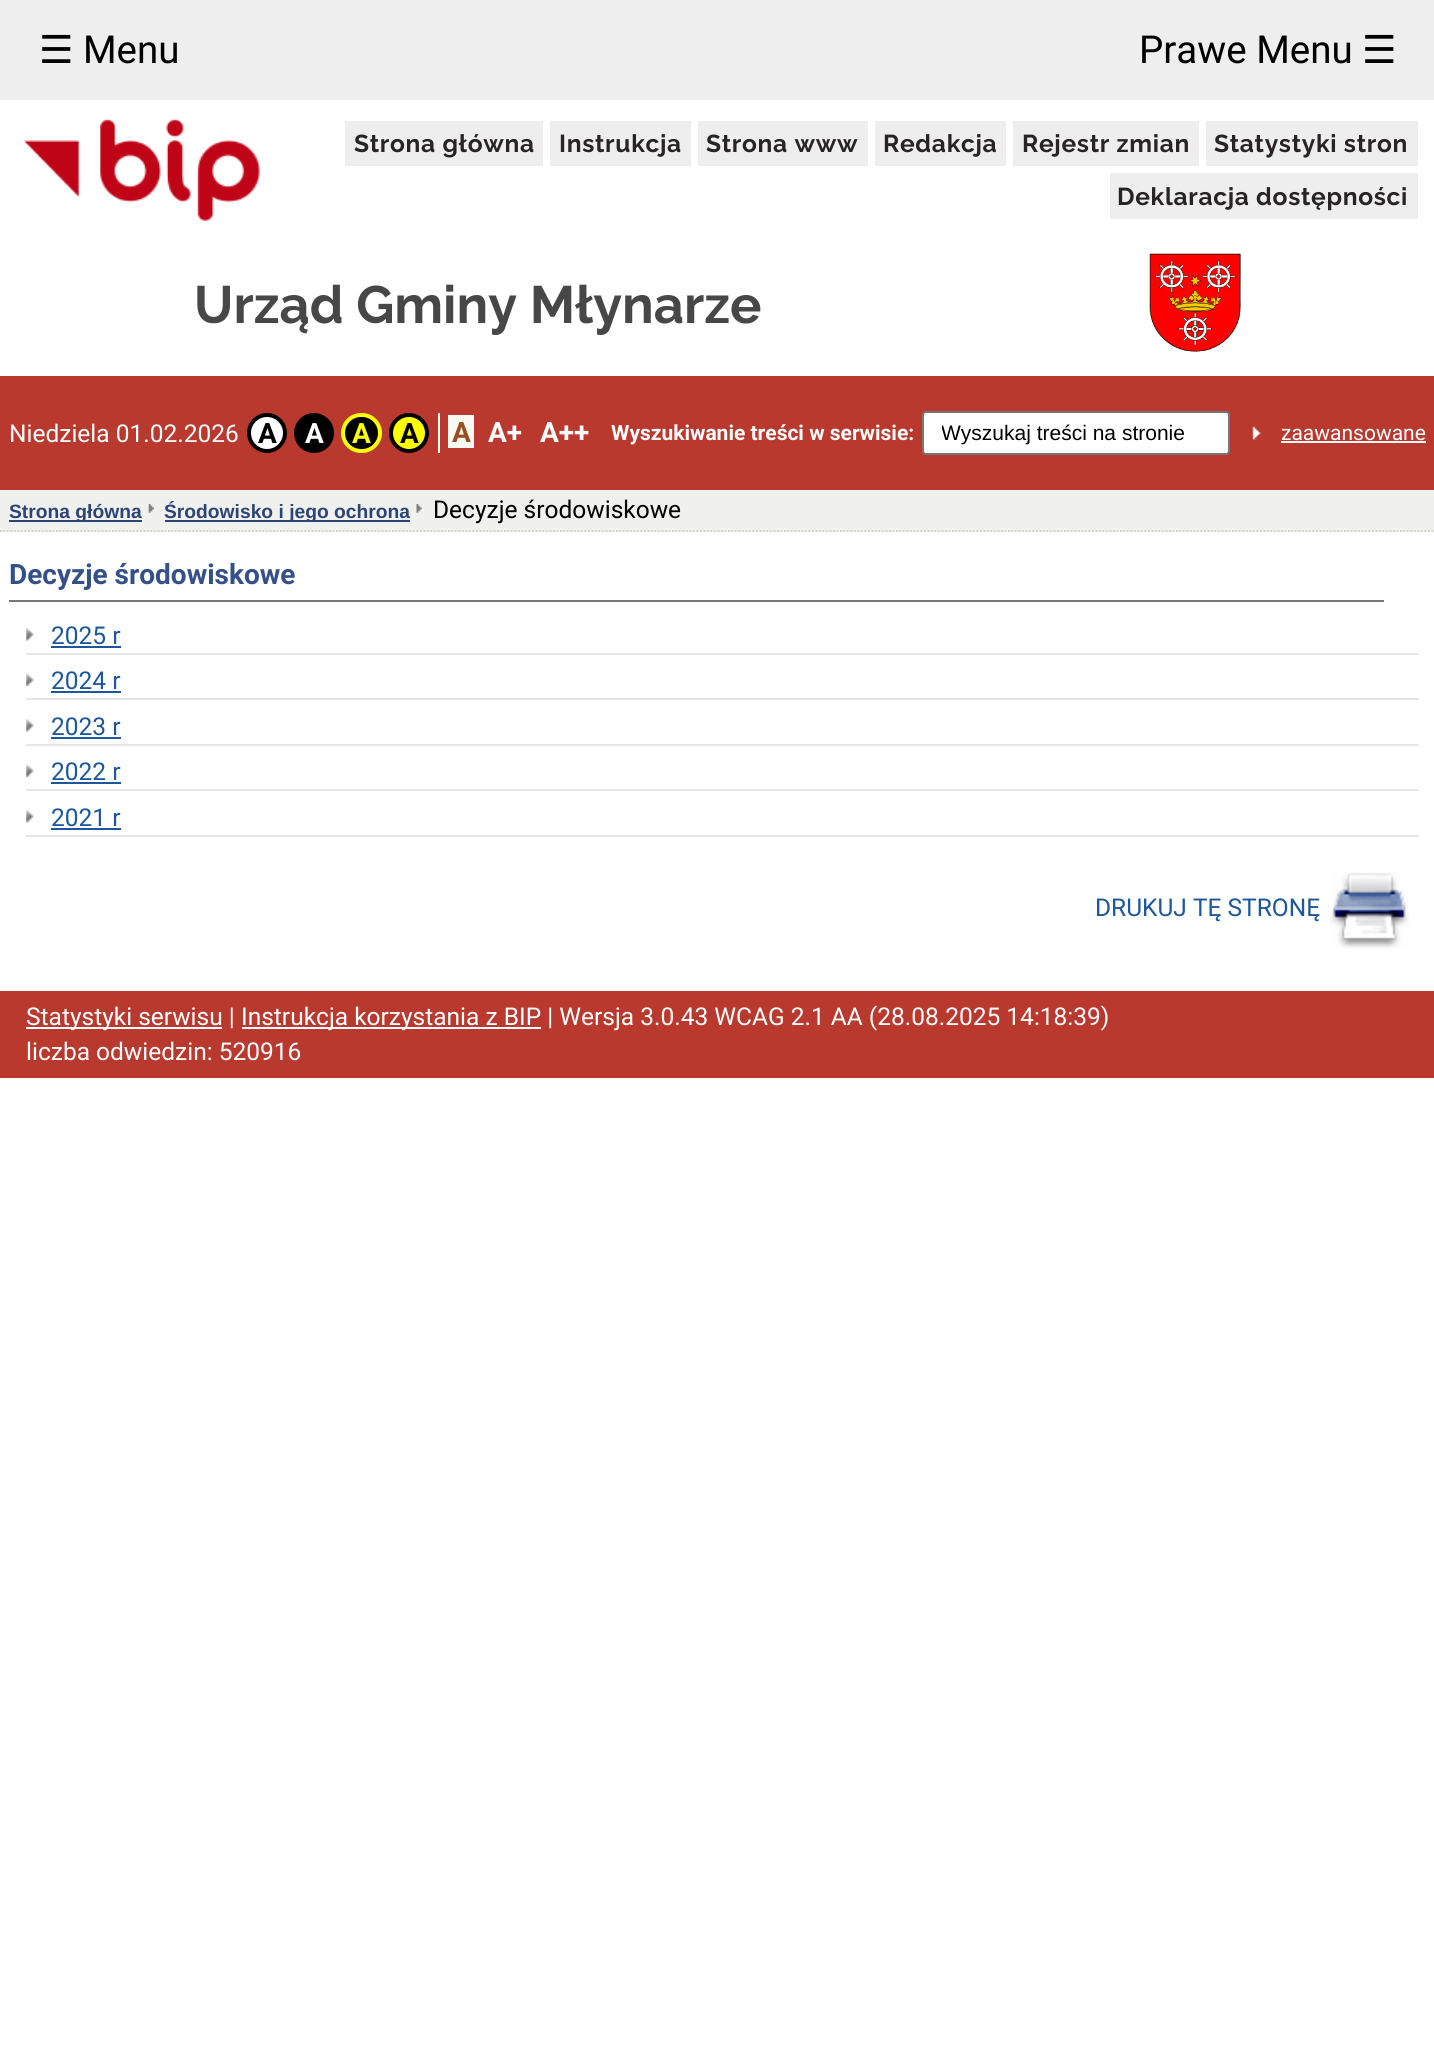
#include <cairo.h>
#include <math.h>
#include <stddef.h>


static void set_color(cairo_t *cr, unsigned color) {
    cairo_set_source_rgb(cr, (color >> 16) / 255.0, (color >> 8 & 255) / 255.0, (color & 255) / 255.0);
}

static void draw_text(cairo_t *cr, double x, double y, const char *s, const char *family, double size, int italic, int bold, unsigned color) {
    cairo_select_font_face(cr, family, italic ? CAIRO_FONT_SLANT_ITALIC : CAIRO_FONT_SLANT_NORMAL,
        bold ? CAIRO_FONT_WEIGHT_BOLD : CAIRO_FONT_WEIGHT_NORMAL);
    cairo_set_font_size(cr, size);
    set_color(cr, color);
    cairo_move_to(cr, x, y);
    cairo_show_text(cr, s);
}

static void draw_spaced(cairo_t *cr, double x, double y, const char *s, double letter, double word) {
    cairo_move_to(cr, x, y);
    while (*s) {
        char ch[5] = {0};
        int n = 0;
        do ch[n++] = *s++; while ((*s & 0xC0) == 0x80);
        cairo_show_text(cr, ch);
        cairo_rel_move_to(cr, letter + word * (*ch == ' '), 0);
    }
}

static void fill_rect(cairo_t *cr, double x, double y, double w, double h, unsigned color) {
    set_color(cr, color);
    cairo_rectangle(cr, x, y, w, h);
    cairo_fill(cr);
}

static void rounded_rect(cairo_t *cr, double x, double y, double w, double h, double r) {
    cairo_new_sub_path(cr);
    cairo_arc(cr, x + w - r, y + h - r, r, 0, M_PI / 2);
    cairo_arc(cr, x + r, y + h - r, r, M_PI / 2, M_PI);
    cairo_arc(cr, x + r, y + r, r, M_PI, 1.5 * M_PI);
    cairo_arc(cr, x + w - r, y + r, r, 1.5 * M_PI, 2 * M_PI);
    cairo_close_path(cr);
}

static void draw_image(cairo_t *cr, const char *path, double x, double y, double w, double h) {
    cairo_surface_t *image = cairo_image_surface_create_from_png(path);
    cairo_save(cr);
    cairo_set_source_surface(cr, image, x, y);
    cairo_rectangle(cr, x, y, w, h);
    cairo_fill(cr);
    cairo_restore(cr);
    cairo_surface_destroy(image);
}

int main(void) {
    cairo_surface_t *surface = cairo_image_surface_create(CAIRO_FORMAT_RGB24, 1434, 2049);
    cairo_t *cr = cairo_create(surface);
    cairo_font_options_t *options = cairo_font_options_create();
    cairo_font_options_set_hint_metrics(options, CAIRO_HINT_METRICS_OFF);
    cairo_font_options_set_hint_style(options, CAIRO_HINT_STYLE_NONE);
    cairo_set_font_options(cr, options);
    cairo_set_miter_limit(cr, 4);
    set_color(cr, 0xFFFFFF);
    cairo_paint(cr);
    fill_rect(cr, 0, 0, 1434, 100, 0xEEEEEE);
    draw_text(cr, 39, 63, "☰", "DejaVu Sans", 38.5, 0, 0, 0x000000);
    draw_text(cr, 83, 63, "Menu", "Roboto", 38.5, 0, 0, 0x000000);
    draw_text(cr, 1139, 63, "Prawe Menu", "Roboto", 38.5, 0, 0, 0x000000);
    draw_text(cr, 1362, 63, "☰", "DejaVu Sans", 38.5, 0, 0, 0x000000);
    draw_image(cr, "assets/img1.png", 24, 118, 236, 104);
    fill_rect(cr, 345, 121, 198, 45, 0xEEEEEE);
    cairo_select_font_face(cr, "Raleway", CAIRO_FONT_SLANT_NORMAL, CAIRO_FONT_WEIGHT_BOLD);
    cairo_set_font_size(cr, 24.5);
    set_color(cr, 0x282425);
    draw_spaced(cr, 354, 152, "Strona główna", 0.7, 0);
    fill_rect(cr, 550, 121, 141, 45, 0xEEEEEE);
    set_color(cr, 0x282425);
    draw_spaced(cr, 559, 152, "Instrukcja", 0.7, 0);
    fill_rect(cr, 698, 121, 170, 45, 0xEEEEEE);
    set_color(cr, 0x282425);
    draw_spaced(cr, 706, 152, "Strona www", 0.7, 0);
    fill_rect(cr, 875, 121, 131, 45, 0xEEEEEE);
    set_color(cr, 0x282425);
    draw_spaced(cr, 883, 152, "Redakcja", 0.7, 0);
    fill_rect(cr, 1013, 121, 186, 45, 0xEEEEEE);
    set_color(cr, 0x282425);
    draw_spaced(cr, 1022, 152, "Rejestr zmian", 0.7, 0);
    fill_rect(cr, 1206, 121, 212, 45, 0xEEEEEE);
    set_color(cr, 0x282425);
    draw_spaced(cr, 1214, 152, "Statystyki stron", 0.7, 0);
    fill_rect(cr, 1110, 173, 308, 46, 0xEEEEEE);
    set_color(cr, 0x282425);
    draw_spaced(cr, 1117, 205, "Deklaracja dostępności", 0.7, 0);
    draw_text(cr, 194, 323, "Urząd Gminy Młynarze", "Raleway", 52.5, 0, 1, 0x474747);
    draw_image(cr, "assets/img2.png", 1149, 253, 92, 99);
    fill_rect(cr, 0, 376, 1434, 114, 0xB9392E);
    draw_text(cr, 9, 442, "Niedziela 01.02.2026", "Roboto", 24.5, 0, 0, 0xFFFFFF);
    fill_rect(cr, 438, 413, 2, 40, 0xFFFFFF);
    cairo_new_path(cr);
    cairo_arc(cr, 267, 433, 18, 0, 2 * M_PI);
    cairo_fill_preserve(cr);
    set_color(cr, 0x000000);
    cairo_set_line_width(cr, 4);
    cairo_stroke(cr);
    draw_text(cr, 258, 443, "A", "Roboto", 28, 0, 1, 0x000000);
    cairo_new_path(cr);
    cairo_arc(cr, 314, 433, 18, 0, 2 * M_PI);
    cairo_fill_preserve(cr);
    cairo_stroke(cr);
    draw_text(cr, 305, 443, "A", "Roboto", 28, 0, 1, 0xFFFFFF);
    set_color(cr, 0x000000);
    rounded_rect(cr, 343, 415, 37, 36, 18);
    cairo_fill_preserve(cr);
    set_color(cr, 0xFFFF00);
    cairo_stroke(cr);
    draw_text(cr, 352, 443, "A", "Roboto", 28, 0, 1, 0xFFFF00);
    cairo_new_path(cr);
    cairo_arc(cr, 409, 433, 18, 0, 2 * M_PI);
    cairo_fill_preserve(cr);
    set_color(cr, 0x000000);
    cairo_stroke(cr);
    draw_text(cr, 400, 443, "A", "Roboto", 28, 0, 1, 0x000000);
    fill_rect(cr, 448, 415, 26, 33, 0xF8F9F1);
    draw_text(cr, 452, 442, "A", "Roboto", 28, 0, 1, 0x9A4D22);
    draw_text(cr, 488, 442, "A+", "Roboto", 28, 0, 1, 0xFFFFFF);
    draw_text(cr, 540, 442, "A++", "Roboto", 28, 0, 1, 0xFFFFFF);
    draw_text(cr, 611, 440, "Wyszukiwanie treści w serwisie:", "Roboto", 21, 0, 1, 0xFFFFFF);
    rounded_rect(cr, 923, 412, 306, 42, 3);
    cairo_fill_preserve(cr);
    set_color(cr, 0x767676);
    cairo_set_line_width(cr, 2);
    cairo_stroke(cr);
    cairo_save(cr);
    cairo_rectangle(cr, 942, 420, 271, 25);
    cairo_clip(cr);
    draw_text(cr, 941, 440, "Wyszukaj treści na stronie", "Liberation Sans", 21, 0, 0, 0x000000);
    cairo_restore(cr);
    draw_image(cr, "assets/img3.png", 1252, 426, 9, 14);
    draw_text(cr, 1281, 440, "zaawansowane", "Roboto", 21, 0, 0, 0xFFFFFF);
    fill_rect(cr, 1281, 441, 145, 2, 0xFFFFFF);
    fill_rect(cr, 0, 490, 1434, 42, 0xF0F0ED);
    cairo_new_path(cr);
    cairo_move_to(cr, 0, 531);
    cairo_line_to(cr, 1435, 531);
    set_color(cr, 0xCFCFC6);
    cairo_set_line_width(cr, 1.8);
    cairo_set_dash(cr, (double[]){1.75, 1.75}, 2, 0);
    cairo_stroke(cr);
    fill_rect(cr, 9, 520, 133, 2, 0x2C4476);
    draw_text(cr, 9, 518, "Strona główna", "Liberation Sans", 19.25, 0, 1, 0x2C4476);
    draw_image(cr, "assets/img4.png", 148, 504, 6, 9);
    fill_rect(cr, 165, 520, 245, 2, 0x2C4476);
    draw_text(cr, 164, 518, "Środowisko i jego ochrona", "Liberation Sans", 19.25, 0, 1, 0x2C4476);
    draw_image(cr, "assets/img5.png", 416, 504, 6, 9);
    draw_text(cr, 433, 518, "Decyzje środowiskowe", "Roboto", 24.5, 0, 0, 0x000000);
    fill_rect(cr, 9, 600, 1375, 2, 0x777777);
    draw_text(cr, 9, 584, "Decyzje środowiskowe", "Roboto", 28, 0, 1, 0x34508B);
    fill_rect(cr, 26, 653, 1393, 2, 0xE6E6E6);
    draw_image(cr, "assets/img6.png", 26, 628, 8, 13);
    draw_text(cr, 51, 644, "2025 r", "Roboto", 24.5, 0, 0, 0x1D569B);
    fill_rect(cr, 51, 646, 70, 2, 0x1D569B);
    fill_rect(cr, 26, 698, 1393, 2, 0xE6E6E6);
    draw_image(cr, "assets/img7.png", 26, 673, 8, 13);
    draw_text(cr, 51, 689, "2024 r", "Roboto", 24.5, 0, 0, 0x1D569B);
    fill_rect(cr, 51, 691, 70, 2, 0x1D569B);
    fill_rect(cr, 26, 744, 1393, 2, 0xE6E6E6);
    draw_image(cr, "assets/img6.png", 26, 719, 8, 13);
    draw_text(cr, 51, 735, "2023 r", "Roboto", 24.5, 0, 0, 0x1D569B);
    fill_rect(cr, 51, 737, 70, 2, 0x1D569B);
    fill_rect(cr, 26, 789, 1393, 2, 0xE6E6E6);
    draw_image(cr, "assets/img7.png", 26, 764, 8, 13);
    draw_text(cr, 51, 780, "2022 r", "Roboto", 24.5, 0, 0, 0x1D569B);
    fill_rect(cr, 51, 782, 70, 2, 0x1D569B);
    fill_rect(cr, 26, 835, 1393, 2, 0xE6E6E6);
    draw_image(cr, "assets/img6.png", 26, 810, 8, 13);
    draw_text(cr, 51, 826, "2021 r", "Roboto", 24.5, 0, 0, 0x1D569B);
    fill_rect(cr, 51, 828, 70, 2, 0x1D569B);
    draw_text(cr, 1095, 916, "DRUKUJ TĘ STRONĘ", "Roboto", 24.5, 0, 0, 0x1D569B);
    draw_image(cr, "assets/img8.png", 1330, 872, 79, 77);
    fill_rect(cr, 0, 991, 1434, 87, 0xB9392E);
    fill_rect(cr, 26, 1027, 196, 2, 0xFFFFFF);
    draw_text(cr, 26, 1025, "Statystyki serwisu |", "Roboto", 24.5, 0, 0, 0xFFFFFF);
    fill_rect(cr, 242, 1027, 299, 2, 0xFFFFFF);
    draw_text(cr, 241, 1025, "Instrukcja korzystania z BIP | Wersja 3.0.43 WCAG 2.1 AA (28.08.2025 14:18:39)", "Roboto", 24.5, 0, 0, 0xFFFFFF);
    draw_text(cr, 26, 1060, "liczba odwiedzin: 520916", "Roboto", 24.5, 0, 0, 0xFFFFFF);
    cairo_surface_write_to_png(surface, "output.png");
    cairo_font_options_destroy(options);
    cairo_destroy(cr);
    cairo_surface_destroy(surface);
    return 0;
}
